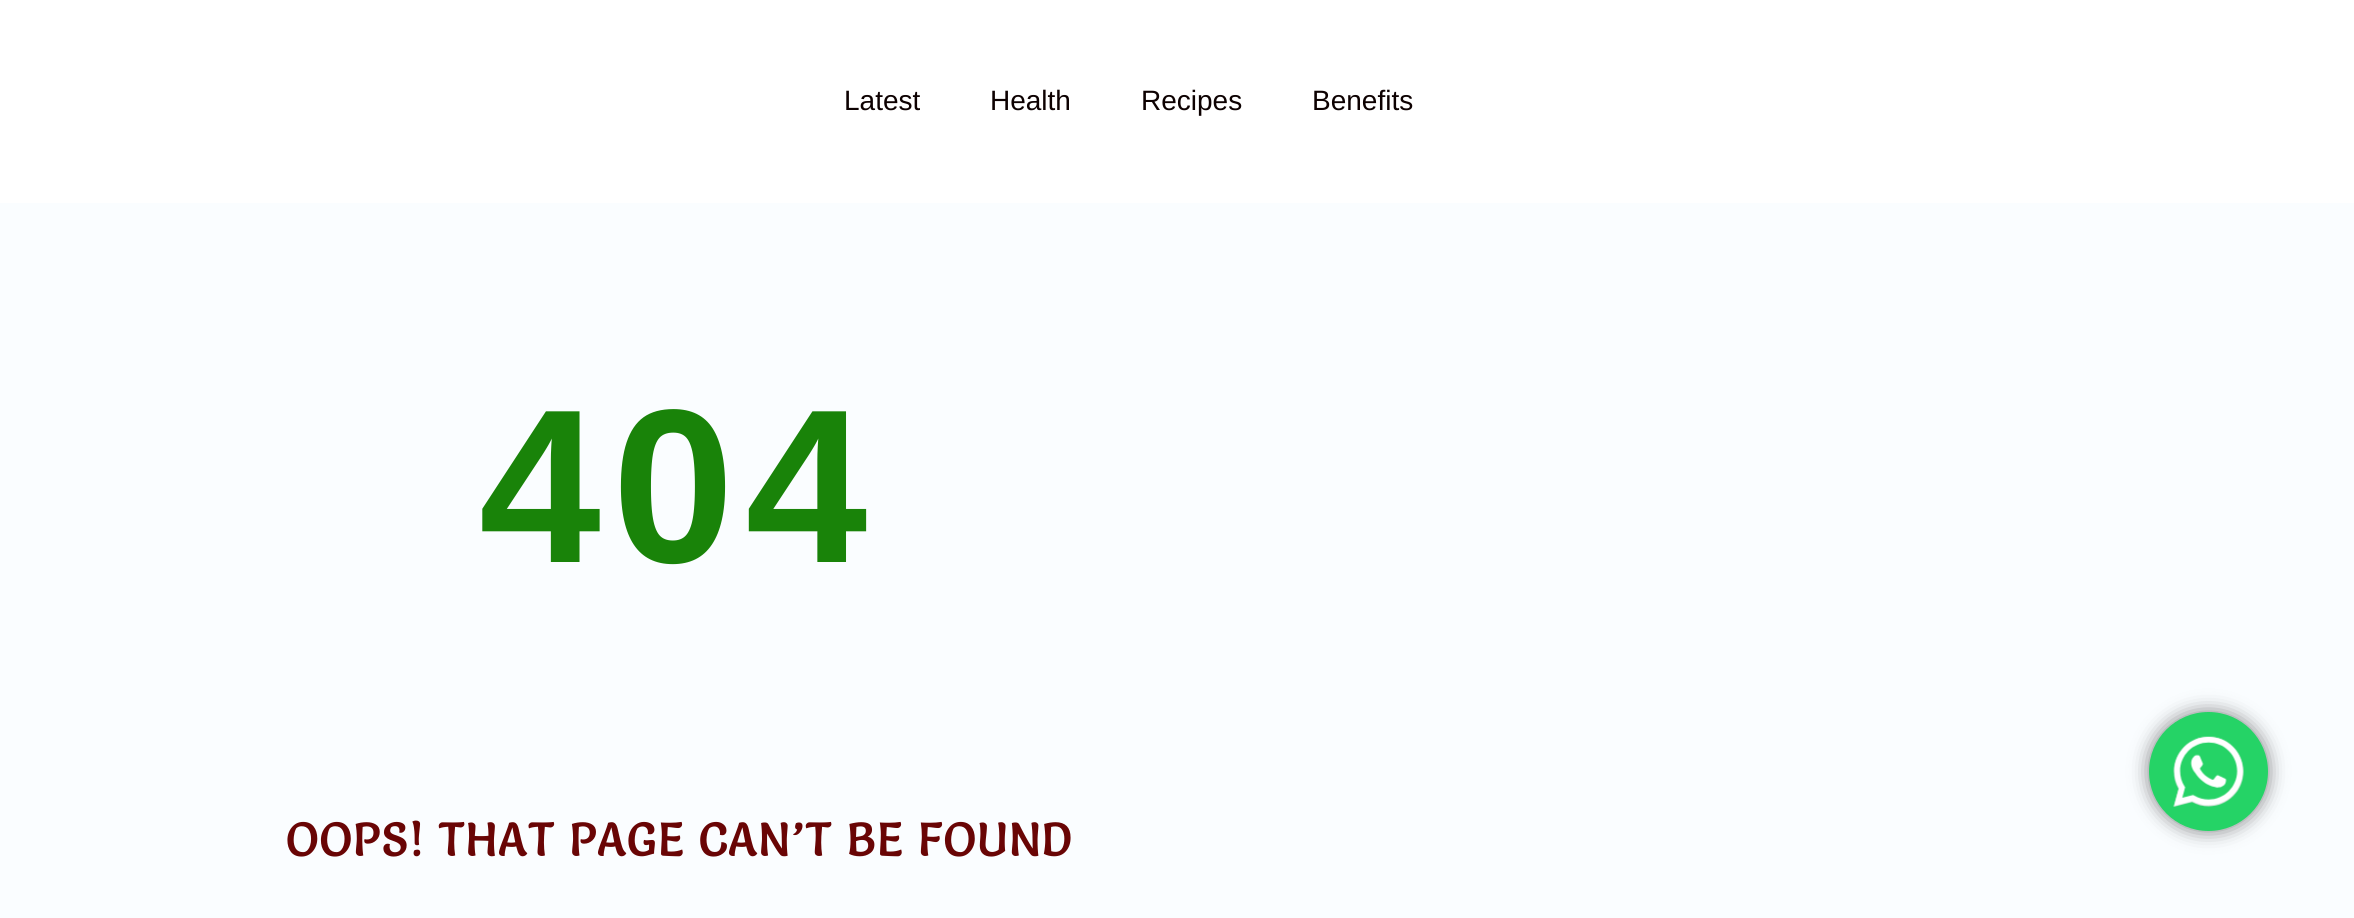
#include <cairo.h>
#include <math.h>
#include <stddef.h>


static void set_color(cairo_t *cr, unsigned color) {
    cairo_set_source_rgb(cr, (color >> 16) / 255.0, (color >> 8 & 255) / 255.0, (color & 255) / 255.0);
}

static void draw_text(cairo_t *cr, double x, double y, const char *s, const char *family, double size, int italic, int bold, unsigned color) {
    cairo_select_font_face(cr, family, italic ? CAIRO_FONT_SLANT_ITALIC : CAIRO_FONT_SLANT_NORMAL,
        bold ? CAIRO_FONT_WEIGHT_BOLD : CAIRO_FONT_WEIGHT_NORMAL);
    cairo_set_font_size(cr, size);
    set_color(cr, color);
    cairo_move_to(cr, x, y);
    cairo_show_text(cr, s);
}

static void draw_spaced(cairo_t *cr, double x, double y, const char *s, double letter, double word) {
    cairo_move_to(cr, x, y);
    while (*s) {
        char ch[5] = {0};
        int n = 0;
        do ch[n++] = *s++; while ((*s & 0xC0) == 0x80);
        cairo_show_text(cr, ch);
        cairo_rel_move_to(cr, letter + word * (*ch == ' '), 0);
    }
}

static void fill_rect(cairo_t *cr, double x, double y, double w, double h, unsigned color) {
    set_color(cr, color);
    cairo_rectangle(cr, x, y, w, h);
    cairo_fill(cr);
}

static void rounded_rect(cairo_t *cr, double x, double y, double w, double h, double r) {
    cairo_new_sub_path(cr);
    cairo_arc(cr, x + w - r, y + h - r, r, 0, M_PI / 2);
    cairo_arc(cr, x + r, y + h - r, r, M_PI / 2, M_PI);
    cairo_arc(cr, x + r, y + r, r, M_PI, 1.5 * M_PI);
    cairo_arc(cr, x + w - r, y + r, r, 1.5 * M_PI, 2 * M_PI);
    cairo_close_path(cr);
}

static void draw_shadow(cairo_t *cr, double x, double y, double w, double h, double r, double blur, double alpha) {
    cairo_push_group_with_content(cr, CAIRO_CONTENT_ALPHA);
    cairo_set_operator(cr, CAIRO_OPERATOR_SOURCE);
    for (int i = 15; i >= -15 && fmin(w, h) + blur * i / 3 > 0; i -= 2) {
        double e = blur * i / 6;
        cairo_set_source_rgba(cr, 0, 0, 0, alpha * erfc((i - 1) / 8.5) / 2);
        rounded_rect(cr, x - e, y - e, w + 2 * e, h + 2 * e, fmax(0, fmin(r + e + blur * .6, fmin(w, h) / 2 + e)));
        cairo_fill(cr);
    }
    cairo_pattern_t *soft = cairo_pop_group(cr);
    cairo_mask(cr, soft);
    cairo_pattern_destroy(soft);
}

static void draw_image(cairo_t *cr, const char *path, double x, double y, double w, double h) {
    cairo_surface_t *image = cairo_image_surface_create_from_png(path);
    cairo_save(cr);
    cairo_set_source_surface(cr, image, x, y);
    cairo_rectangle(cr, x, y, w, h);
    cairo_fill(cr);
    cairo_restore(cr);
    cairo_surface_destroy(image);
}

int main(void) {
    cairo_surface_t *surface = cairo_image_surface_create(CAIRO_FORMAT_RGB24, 2354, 918);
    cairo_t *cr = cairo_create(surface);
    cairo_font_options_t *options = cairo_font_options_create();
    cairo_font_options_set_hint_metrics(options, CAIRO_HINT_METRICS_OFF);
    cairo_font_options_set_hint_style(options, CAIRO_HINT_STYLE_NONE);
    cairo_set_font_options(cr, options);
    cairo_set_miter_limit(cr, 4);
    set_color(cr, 0xFFFFFF);
    cairo_paint(cr);
    draw_text(cr, 844, 110, "Latest", "Liberation Sans", 28, 0, 0, 0x0D0101);
    draw_text(cr, 990, 110, "Health", "Liberation Sans", 28, 0, 0, 0x0D0101);
    draw_text(cr, 1141, 110, "Recipes", "Liberation Sans", 28, 0, 0, 0x0D0101);
    draw_text(cr, 1312, 110, "Benefits", "Liberation Sans", 28, 0, 0, 0x0D0101);
    fill_rect(cr, 0, 203, 2354, 715, 0xFAFDFF);
    cairo_select_font_face(cr, "Liberation Sans", CAIRO_FONT_SLANT_NORMAL, CAIRO_FONT_WEIGHT_BOLD);
    cairo_set_font_size(cr, 219);
    set_color(cr, 0x198309);
    draw_spaced(cr, 479, 562, "404", 11.5, 0);
    cairo_select_font_face(cr, "Salsa", CAIRO_FONT_SLANT_NORMAL, CAIRO_FONT_WEIGHT_NORMAL);
    cairo_set_font_size(cr, 47.25);
    set_color(cr, 0x690505);
    draw_spaced(cr, 286, 856, "OOPS! THAT PAGE CAN’T BE FOUND", 0.7, 0);
    set_color(cr, 0x000000);
    draw_shadow(cr, 2149, 712, 119, 119, 59.5, 9.5, 0.5);
    set_color(cr, 0x25D366);
    cairo_arc(cr, 2208.5, 771.5, 59.5, 0, 2 * M_PI);
    cairo_fill(cr);
    draw_image(cr, "assets/img1.png", 2173, 736, 71, 71);
    cairo_surface_write_to_png(surface, "output.png");
    cairo_font_options_destroy(options);
    cairo_destroy(cr);
    cairo_surface_destroy(surface);
    return 0;
}
